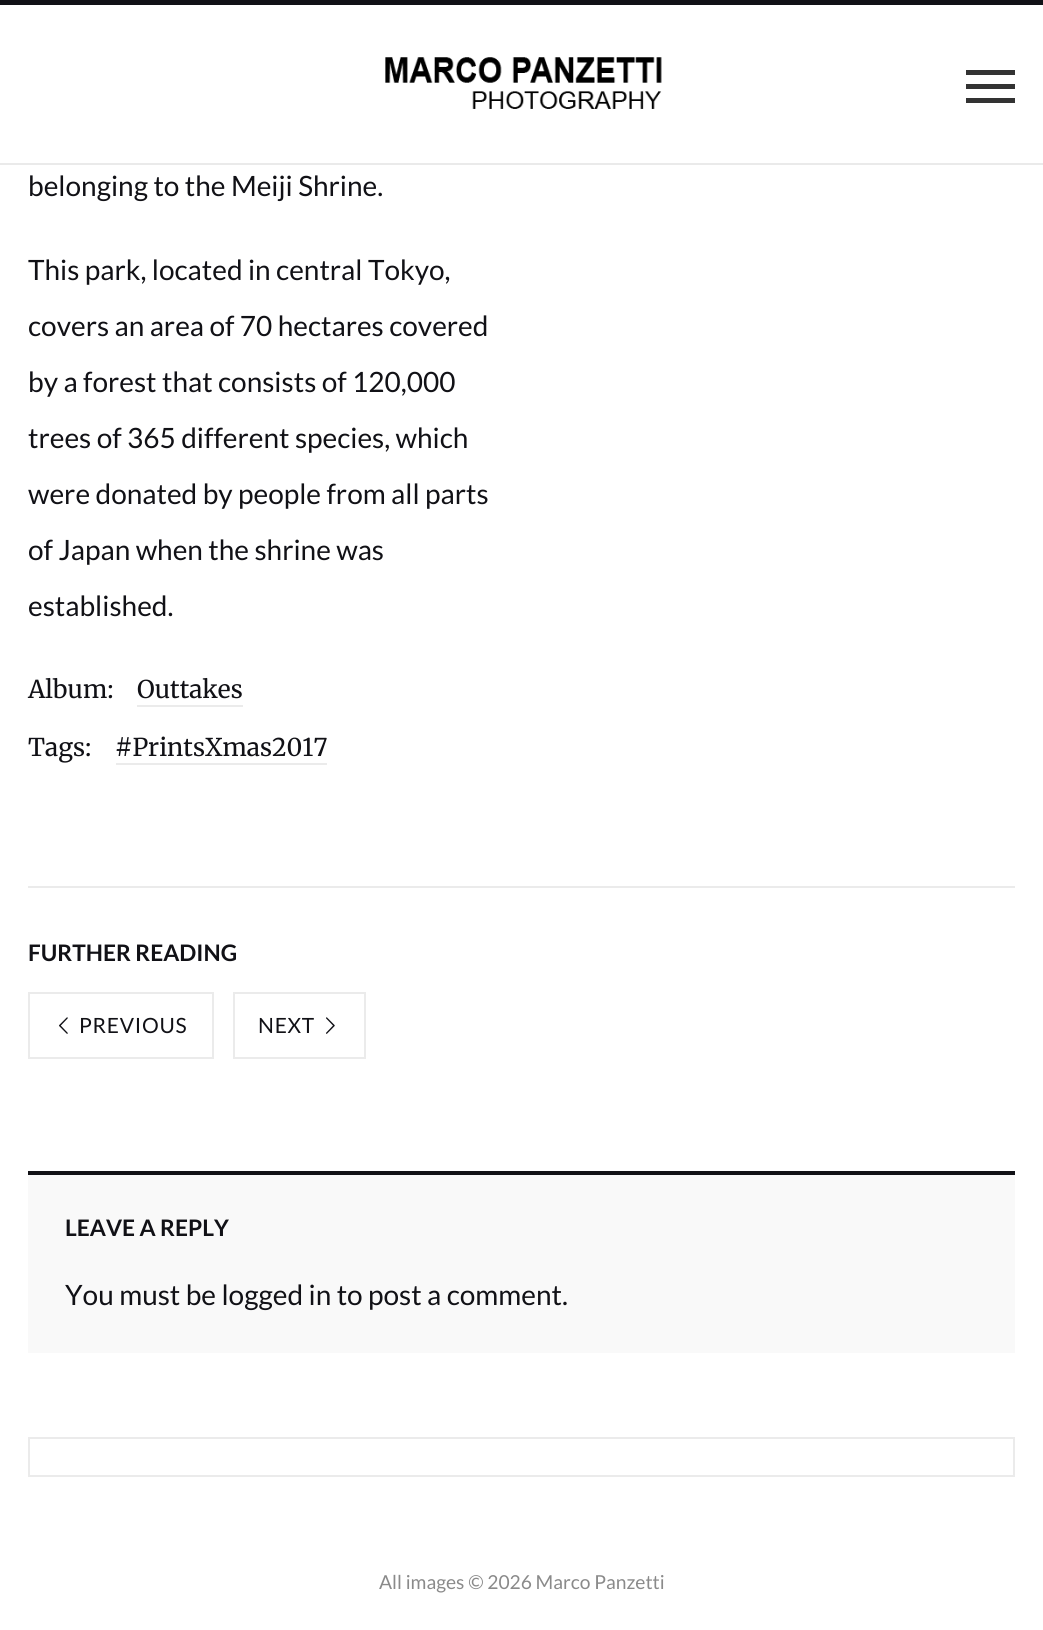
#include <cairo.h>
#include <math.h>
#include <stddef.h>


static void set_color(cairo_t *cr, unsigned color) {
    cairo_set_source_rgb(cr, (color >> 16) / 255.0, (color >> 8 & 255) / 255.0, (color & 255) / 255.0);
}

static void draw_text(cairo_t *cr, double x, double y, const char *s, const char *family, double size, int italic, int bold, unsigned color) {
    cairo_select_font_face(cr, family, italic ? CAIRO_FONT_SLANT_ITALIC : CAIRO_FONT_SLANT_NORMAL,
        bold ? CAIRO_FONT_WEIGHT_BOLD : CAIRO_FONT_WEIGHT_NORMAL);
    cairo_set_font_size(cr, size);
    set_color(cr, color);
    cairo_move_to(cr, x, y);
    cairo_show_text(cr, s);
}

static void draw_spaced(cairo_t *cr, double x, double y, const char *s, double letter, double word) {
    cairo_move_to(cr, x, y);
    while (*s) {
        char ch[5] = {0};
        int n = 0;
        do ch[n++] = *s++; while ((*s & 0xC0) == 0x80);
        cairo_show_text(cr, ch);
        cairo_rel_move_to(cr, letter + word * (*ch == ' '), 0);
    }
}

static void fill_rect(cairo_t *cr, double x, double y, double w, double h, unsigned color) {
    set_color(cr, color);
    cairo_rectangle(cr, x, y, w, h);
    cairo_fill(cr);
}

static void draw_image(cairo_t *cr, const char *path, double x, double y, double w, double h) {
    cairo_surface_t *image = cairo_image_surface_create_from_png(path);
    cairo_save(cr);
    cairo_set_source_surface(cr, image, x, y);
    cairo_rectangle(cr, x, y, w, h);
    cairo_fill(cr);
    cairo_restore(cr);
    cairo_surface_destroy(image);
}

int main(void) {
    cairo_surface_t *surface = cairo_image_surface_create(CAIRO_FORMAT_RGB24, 1043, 1630);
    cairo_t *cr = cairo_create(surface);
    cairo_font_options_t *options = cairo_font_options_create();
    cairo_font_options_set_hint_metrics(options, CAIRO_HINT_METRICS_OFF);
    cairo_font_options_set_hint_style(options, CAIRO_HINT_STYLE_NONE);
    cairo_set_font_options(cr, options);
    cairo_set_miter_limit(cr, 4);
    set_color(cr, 0xFFFFFF);
    cairo_paint(cr);
    fill_rect(cr, 0, 163, 1043, 2, 0xEAEAEA);
    fill_rect(cr, 0, 0, 1043, 5, 0x111116);
    draw_image(cr, "assets/img1.png", 385, 57, 277, 52);
    fill_rect(cr, 966, 84, 49, 5, 0x333333);
    fill_rect(cr, 966, 70, 49, 5, 0x333333);
    fill_rect(cr, 966, 98, 49, 5, 0x333333);
    draw_text(cr, 28, 196, "belonging to the Meiji Shrine.", "Lato", 28, 0, 0, 0x111116);
    draw_text(cr, 28, 280, "This park, located in central Tokyo,", "Lato", 28, 0, 0, 0x111116);
    draw_text(cr, 28, 336, "covers an area of 70 hectares covered", "Lato", 28, 0, 0, 0x111116);
    draw_text(cr, 28, 392, "by a forest that consists of 120,000", "Lato", 28, 0, 0, 0x111116);
    draw_text(cr, 28, 448, "trees of 365 different species, which", "Lato", 28, 0, 0, 0x111116);
    draw_text(cr, 28, 504, "were donated by people from all parts", "Lato", 28, 0, 0, 0x111116);
    draw_text(cr, 28, 560, "of Japan when the shrine was", "Lato", 28, 0, 0, 0x111116);
    draw_text(cr, 28, 616, "established.", "Lato", 28, 0, 0, 0x111116);
    draw_text(cr, 28, 698, "Album:", "Merriweather Light", 24.5, 0, 0, 0x111116);
    draw_text(cr, 137, 698, "Outtakes", "Merriweather Light", 24.5, 0, 0, 0x111116);
    fill_rect(cr, 137, 705, 106, 2, 0xEBEBEB);
    draw_text(cr, 28, 756, "Tags:", "Merriweather Light", 24.5, 0, 0, 0x111116);
    draw_text(cr, 115, 756, "#PrintsXmas2017", "Merriweather Light", 24.5, 0, 0, 0x111116);
    fill_rect(cr, 116, 763, 211, 2, 0xEBEBEB);
    fill_rect(cr, 28, 886, 987, 2, 0xEBEBEB);
    draw_text(cr, 28, 961, "FURTHER READING", "Lato", 22.75, 0, 1, 0x111116);
    cairo_rectangle(cr, 29, 993, 184, 65);
    set_color(cr, 0xEBEBEB);
    cairo_stroke(cr);
    draw_image(cr, "assets/img2.png", 59, 1017, 9, 17);
    cairo_select_font_face(cr, "Lato", CAIRO_FONT_SLANT_NORMAL, CAIRO_FONT_WEIGHT_NORMAL);
    cairo_set_font_size(cr, 21);
    set_color(cr, 0x111116);
    draw_spaced(cr, 79, 1033, "PREVIOUS", 0.75, 0);
    cairo_rectangle(cr, 234, 993, 131, 65);
    set_color(cr, 0xEBEBEB);
    cairo_stroke(cr);
    set_color(cr, 0x111116);
    draw_spaced(cr, 258, 1033, "NEXT", 0.75, 0);
    draw_image(cr, "assets/img3.png", 326, 1017, 9, 17);
    fill_rect(cr, 28, 1175, 987, 178, 0xF9F9F9);
    fill_rect(cr, 28, 1171, 987, 4, 0x111116);
    draw_text(cr, 65, 1236, "LEAVE A REPLY", "Lato", 22.75, 0, 1, 0x111116);
    draw_text(cr, 65, 1305, "You must be logged in to post a comment.", "Lato", 28, 0, 0, 0x111116);
    cairo_rectangle(cr, 29, 1438, 985, 38);
    set_color(cr, 0xEBEBEB);
    cairo_stroke(cr);
    draw_text(cr, 379, 1589, "All images © 2026 Marco Panzetti", "Lato", 19.25, 0, 0, 0x8A8A8A);
    cairo_surface_write_to_png(surface, "output.png");
    cairo_font_options_destroy(options);
    cairo_destroy(cr);
    cairo_surface_destroy(surface);
    return 0;
}
